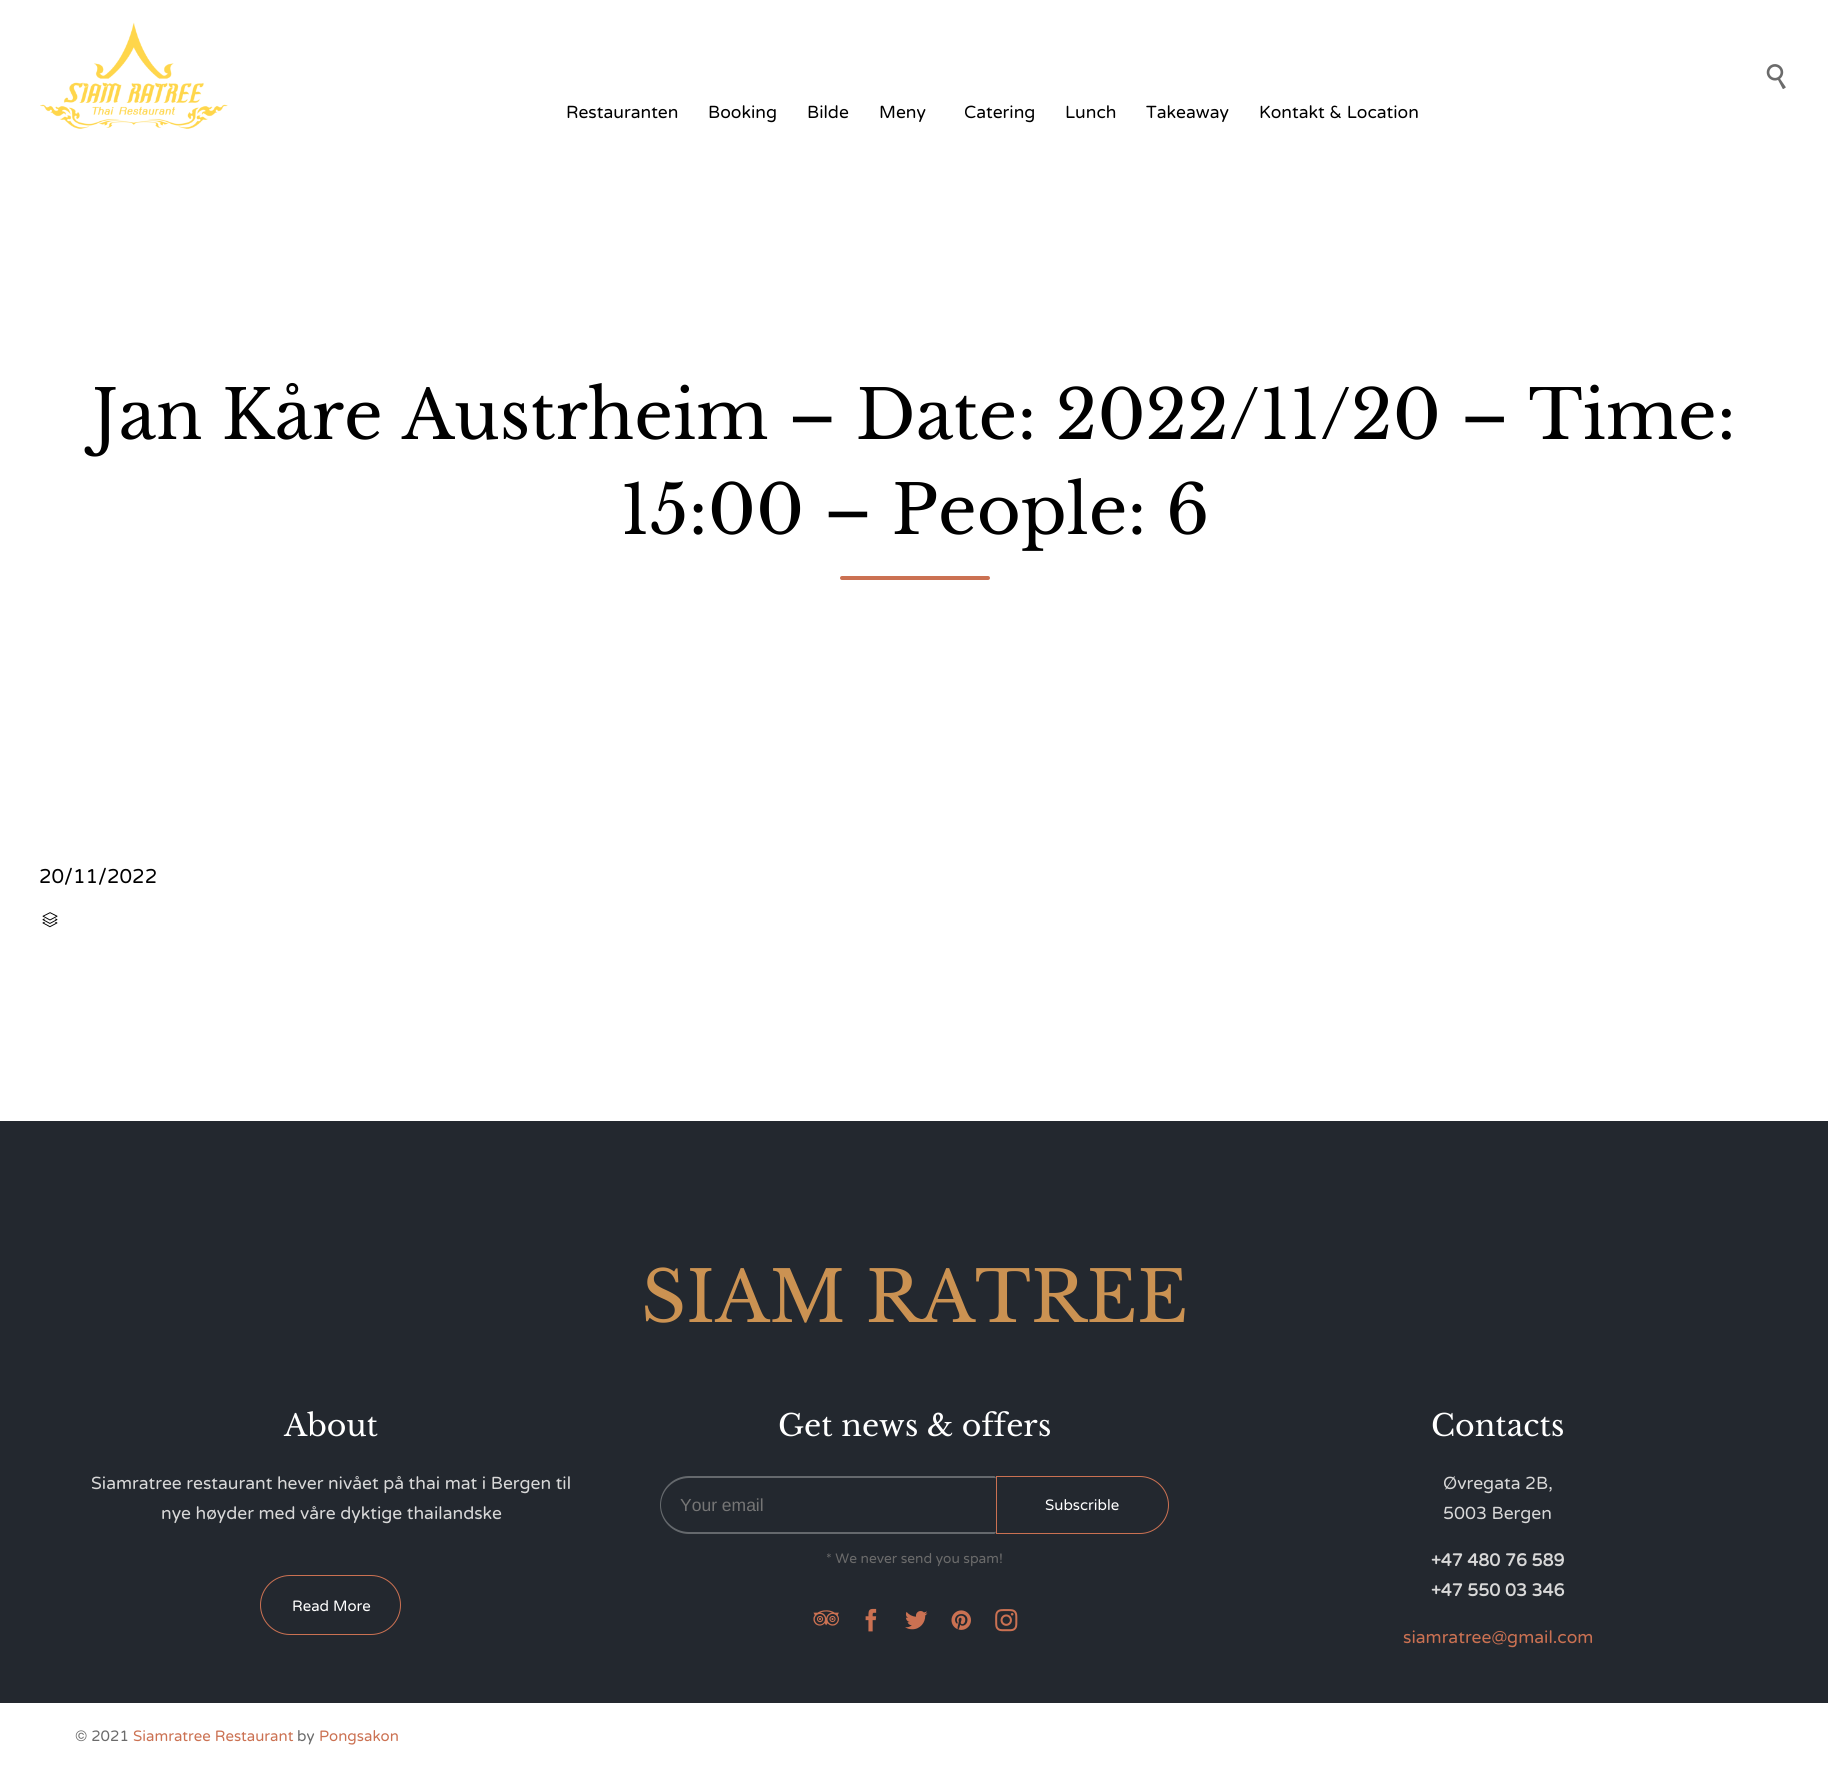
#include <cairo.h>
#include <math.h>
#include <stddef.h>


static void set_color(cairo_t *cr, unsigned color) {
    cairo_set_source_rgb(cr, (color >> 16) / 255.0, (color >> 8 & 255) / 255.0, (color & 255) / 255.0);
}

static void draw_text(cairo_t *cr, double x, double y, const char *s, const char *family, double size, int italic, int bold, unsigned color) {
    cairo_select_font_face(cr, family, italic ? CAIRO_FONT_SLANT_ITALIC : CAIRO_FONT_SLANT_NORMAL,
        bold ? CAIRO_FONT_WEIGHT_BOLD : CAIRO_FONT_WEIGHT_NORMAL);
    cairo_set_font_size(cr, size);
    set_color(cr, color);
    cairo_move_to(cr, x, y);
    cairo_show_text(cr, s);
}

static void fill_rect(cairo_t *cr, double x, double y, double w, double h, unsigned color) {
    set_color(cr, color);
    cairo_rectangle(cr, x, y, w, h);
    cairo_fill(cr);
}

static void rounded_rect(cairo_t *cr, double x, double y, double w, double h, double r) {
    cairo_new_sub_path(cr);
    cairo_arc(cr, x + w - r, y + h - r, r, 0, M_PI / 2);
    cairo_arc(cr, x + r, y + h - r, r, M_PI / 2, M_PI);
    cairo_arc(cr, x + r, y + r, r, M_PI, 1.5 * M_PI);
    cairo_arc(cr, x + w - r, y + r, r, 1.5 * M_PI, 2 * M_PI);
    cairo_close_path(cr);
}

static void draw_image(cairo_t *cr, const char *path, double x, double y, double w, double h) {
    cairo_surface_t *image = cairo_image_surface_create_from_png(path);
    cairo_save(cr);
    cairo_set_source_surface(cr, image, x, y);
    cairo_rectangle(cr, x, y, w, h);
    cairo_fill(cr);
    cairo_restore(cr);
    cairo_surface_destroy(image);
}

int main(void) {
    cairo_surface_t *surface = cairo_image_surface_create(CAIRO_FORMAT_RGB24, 1828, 1769);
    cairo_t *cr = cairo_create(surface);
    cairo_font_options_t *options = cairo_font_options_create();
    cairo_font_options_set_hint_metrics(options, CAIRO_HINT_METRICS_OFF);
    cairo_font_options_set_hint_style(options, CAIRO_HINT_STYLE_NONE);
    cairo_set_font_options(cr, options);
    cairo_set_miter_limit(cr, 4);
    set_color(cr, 0xFFFFFF);
    cairo_paint(cr);
    draw_image(cr, "assets/img1.png", 40, 22, 188, 107);
    draw_image(cr, "assets/img2.png", 1766, 64, 20, 25);
    draw_text(cr, 566, 118, "Restauranten", "Varela Round", 17.5, 0, 0, 0x000000);
    draw_text(cr, 708, 118, "Booking", "Varela Round", 17.5, 0, 0, 0x000000);
    draw_text(cr, 807, 118, "Bilde", "Varela Round", 17.5, 0, 0, 0x000000);
    draw_text(cr, 879, 118, "Meny", "Varela Round", 17.5, 0, 0, 0x000000);
    draw_text(cr, 964, 118, "Catering", "Varela Round", 17.5, 0, 0, 0x000000);
    draw_text(cr, 1065, 118, "Lunch", "Varela Round", 17.5, 0, 0, 0x000000);
    draw_text(cr, 1146, 118, "Takeaway", "Varela Round", 17.5, 0, 0, 0x000000);
    draw_text(cr, 1259, 118, "Kontakt & Location", "Varela Round", 17.5, 0, 0, 0x000000);
    draw_text(cr, 92, 439, "Jan Kåre Austrheim – Date: 2022/11/20 – Time:", "Libre Baskerville", 67.5, 0, 0, 0x000000);
    draw_text(cr, 620, 534, "15:00 – People: 6", "Libre Baskerville", 67.5, 0, 0, 0x000000);
    set_color(cr, 0xCB7152);
    rounded_rect(cr, 840, 576, 150, 4, 2);
    cairo_fill(cr);
    draw_text(cr, 39, 883, "20/11/2022", "Varela Round", 20, 0, 0, 0x000000);
    draw_image(cr, "assets/img3.png", 42, 912, 16, 16);
    fill_rect(cr, 0, 1121, 1828, 582, 0x23282F);
    draw_text(cr, 641, 1322, "SIAM RATREE", "Libre Baskerville", 70, 0, 0, 0xCB9252);
    draw_text(cr, 284, 1436, "About", "Libre Baskerville", 30, 0, 0, 0xFFFFFF);
    draw_text(cr, 91, 1489, "Siamratree restaurant hever nivået på thai mat i Bergen til", "Varela Round", 17.5, 0, 0, 0xD8D8D8);
    draw_text(cr, 161, 1519, "nye høyder med våre dyktige thailandske", "Varela Round", 17.5, 0, 0, 0xD8D8D8);
    rounded_rect(cr, 260.5, 1575.5, 140, 59, 29.5);
    set_color(cr, 0xCB7152);
    cairo_set_line_width(cr, 1);
    cairo_stroke(cr);
    draw_text(cr, 292, 1611, "Read More", "Varela Round", 15, 0, 0, 0xFFFFFF);
    draw_text(cr, 778, 1436, "Get news & offers", "Libre Baskerville", 30, 0, 0, 0xFFFFFF);
    set_color(cr, 0x65696D);
    cairo_set_fill_rule(cr, CAIRO_FILL_RULE_EVEN_ODD);
    cairo_new_path(cr);
    cairo_move_to(cr, 689, 1476);
    cairo_line_to(cr, 994, 1476);
    cairo_curve_to(cr, 995, 1476, 996, 1477, 996, 1479);
    cairo_line_to(cr, 996, 1531);
    cairo_curve_to(cr, 996, 1533, 995, 1534, 994, 1534);
    cairo_line_to(cr, 689, 1534);
    cairo_curve_to(cr, 673, 1534, 660, 1521, 660, 1505);
    cairo_curve_to(cr, 660, 1489, 673, 1476, 689, 1476);
    cairo_close_path(cr);
    cairo_move_to(cr, 689, 1478);
    cairo_line_to(cr, 994, 1478);
    cairo_curve_to(cr, 995, 1478, 996, 1478, 996, 1479);
    cairo_line_to(cr, 996, 1531);
    cairo_curve_to(cr, 996, 1532, 995, 1532, 994, 1532);
    cairo_line_to(cr, 689, 1532);
    cairo_curve_to(cr, 674, 1532, 661, 1520, 661, 1505);
    cairo_curve_to(cr, 661, 1490, 674, 1478, 689, 1478);
    cairo_close_path(cr);
    cairo_fill(cr);
    draw_text(cr, 680, 1511, "Your email", "Liberation Sans", 17.5, 0, 0, 0x757575);
    cairo_new_path(cr);
    cairo_move_to(cr, 996.5, 1476.5);
    cairo_line_to(cr, 1140, 1476.5);
    cairo_curve_to(cr, 1155.5, 1476.5, 1168.5, 1489.5, 1168.5, 1505);
    cairo_curve_to(cr, 1168.5, 1520.5, 1155.5, 1533.5, 1140, 1533.5);
    cairo_line_to(cr, 996.5, 1533.5);
    cairo_close_path(cr);
    set_color(cr, 0xCB7152);
    cairo_stroke(cr);
    draw_text(cr, 1045, 1510, "Subscrible", "Varela Round", 15, 0, 0, 0xFFFFFF);
    draw_text(cr, 826, 1563, "* We never send you spam!", "Varela Round", 13.75, 0, 0, 0x6B6B6B);
    draw_image(cr, "assets/img4.png", 813, 1610, 26, 16);
    draw_image(cr, "assets/img5.png", 865, 1608, 12, 24);
    draw_image(cr, "assets/img6.png", 905, 1611, 23, 19);
    draw_image(cr, "assets/img7.png", 951, 1610, 20, 20);
    draw_image(cr, "assets/img8.png", 995, 1609, 23, 23);
    draw_text(cr, 1431, 1436, "Contacts", "Libre Baskerville", 30, 0, 0, 0xFFFFFF);
    draw_text(cr, 1443, 1489, "Øvregata 2B,", "Varela Round", 17.5, 0, 0, 0xD8D8D8);
    draw_text(cr, 1443, 1519, "5003 Bergen", "Varela Round", 17.5, 0, 0, 0xD8D8D8);
    draw_text(cr, 1431, 1566, "+47 480 76 589", "Varela Round", 17.5, 0, 1, 0xD8D8D8);
    draw_text(cr, 1431, 1596, "+47 550 03 346", "Varela Round", 17.5, 0, 1, 0xD8D8D8);
    draw_text(cr, 1403, 1643, "siamratree@gmail.com", "Varela Round", 17.5, 0, 0, 0xCB7152);
    draw_text(cr, 75, 1741, "© 2021", "Varela Round", 15, 0, 0, 0x6B6B6B);
    draw_text(cr, 133, 1741, "Siamratree Restaurant", "Varela Round", 15, 0, 0, 0xCB7152);
    draw_text(cr, 297, 1741, "by", "Varela Round", 15, 0, 0, 0x6B6B6B);
    draw_text(cr, 319, 1741, "Pongsakon", "Varela Round", 15, 0, 0, 0xCB7152);
    cairo_surface_write_to_png(surface, "output.png");
    cairo_font_options_destroy(options);
    cairo_destroy(cr);
    cairo_surface_destroy(surface);
    return 0;
}
